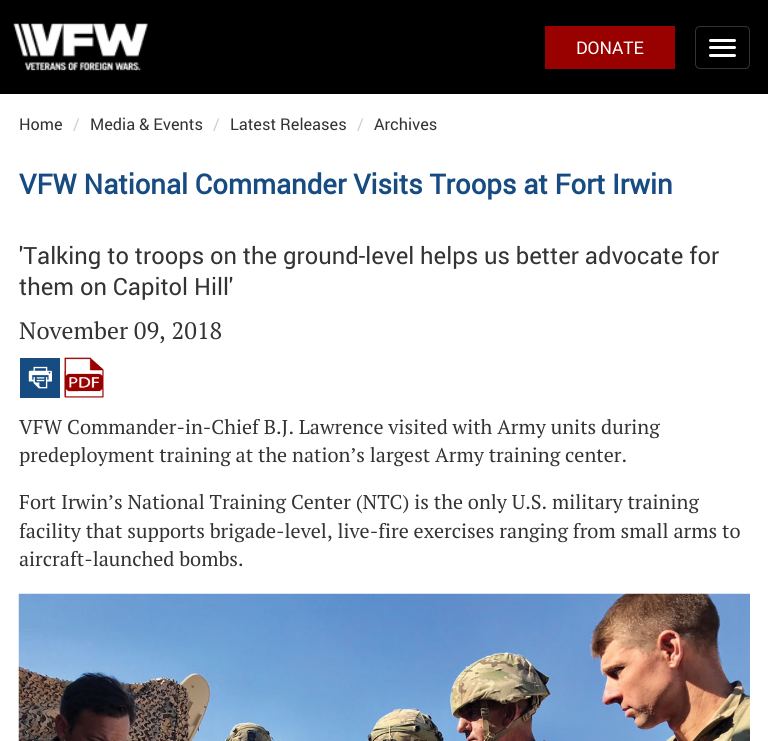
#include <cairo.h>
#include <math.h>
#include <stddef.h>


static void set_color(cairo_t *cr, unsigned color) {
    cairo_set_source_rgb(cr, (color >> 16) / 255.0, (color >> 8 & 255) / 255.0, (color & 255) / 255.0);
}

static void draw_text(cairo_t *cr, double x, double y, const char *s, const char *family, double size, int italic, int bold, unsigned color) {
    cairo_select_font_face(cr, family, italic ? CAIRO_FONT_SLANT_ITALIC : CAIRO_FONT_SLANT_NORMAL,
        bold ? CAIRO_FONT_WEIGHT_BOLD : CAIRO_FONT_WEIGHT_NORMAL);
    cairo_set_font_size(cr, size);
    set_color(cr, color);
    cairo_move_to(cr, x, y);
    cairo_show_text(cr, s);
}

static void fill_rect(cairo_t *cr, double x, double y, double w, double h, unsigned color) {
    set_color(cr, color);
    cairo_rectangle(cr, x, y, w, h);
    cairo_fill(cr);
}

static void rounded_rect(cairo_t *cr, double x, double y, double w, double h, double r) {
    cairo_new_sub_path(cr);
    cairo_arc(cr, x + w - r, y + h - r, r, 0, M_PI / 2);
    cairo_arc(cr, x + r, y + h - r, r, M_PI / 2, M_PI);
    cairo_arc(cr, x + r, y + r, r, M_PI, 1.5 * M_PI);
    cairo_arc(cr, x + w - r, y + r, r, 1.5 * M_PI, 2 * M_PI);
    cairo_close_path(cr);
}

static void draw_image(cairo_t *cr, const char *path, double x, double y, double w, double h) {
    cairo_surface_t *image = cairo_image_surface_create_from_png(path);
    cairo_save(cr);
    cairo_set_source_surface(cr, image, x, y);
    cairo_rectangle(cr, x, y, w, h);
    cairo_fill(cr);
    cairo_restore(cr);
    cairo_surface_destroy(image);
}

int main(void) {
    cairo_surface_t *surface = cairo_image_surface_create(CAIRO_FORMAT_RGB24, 768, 741);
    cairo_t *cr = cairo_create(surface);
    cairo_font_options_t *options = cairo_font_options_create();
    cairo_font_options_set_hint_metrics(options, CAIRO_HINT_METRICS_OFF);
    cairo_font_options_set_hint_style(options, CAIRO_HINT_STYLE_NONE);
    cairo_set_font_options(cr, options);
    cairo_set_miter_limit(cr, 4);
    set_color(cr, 0xFFFFFF);
    cairo_paint(cr);
    fill_rect(cr, 0, 0, 768, 94, 0x000000);
    draw_image(cr, "assets/img1.png", 13, 23, 135, 48);
    fill_rect(cr, 545, 26, 130, 43, 0x990000);
    draw_text(cr, 576, 54, "DONATE", "roboto", 17.5, 0, 0, 0xFFFFFF);
    rounded_rect(cr, 695.5, 26.5, 54, 42, 4.5);
    set_color(cr, 0x333333);
    cairo_set_line_width(cr, 1);
    cairo_stroke(cr);
    set_color(cr, 0xFFFFFF);
    rounded_rect(cr, 709, 39, 27, 3, 1.5);
    cairo_fill(cr);
    rounded_rect(cr, 709, 46, 27, 3, 1.5);
    cairo_fill(cr);
    rounded_rect(cr, 709, 54, 27, 3, 1.5);
    cairo_fill(cr);
    draw_text(cr, 19, 130, "Home", "roboto", 16.25, 0, 0, 0x333333);
    draw_text(cr, 73, 130, "/", "roboto", 16.25, 0, 0, 0xCCCCCC);
    draw_text(cr, 90, 130, "Media & Events", "roboto", 16.25, 0, 0, 0x333333);
    draw_text(cr, 213, 130, "/", "roboto", 16.25, 0, 0, 0xCCCCCC);
    draw_text(cr, 230, 130, "Latest Releases", "roboto", 16.25, 0, 0, 0x333333);
    draw_text(cr, 357, 130, "/", "roboto", 16.25, 0, 0, 0xCCCCCC);
    draw_text(cr, 374, 130, "Archives", "roboto", 16.25, 0, 0, 0x333333);
    draw_text(cr, 19, 194, "VFW National Commander Visits Troops at Fort Irwin", "roboto", 27.5, 0, 1, 0x174C83);
    draw_text(cr, 19, 264, "'Talking to troops on the ground-level helps us better advocate for", "roboto", 23.75, 0, 0, 0x333333);
    draw_text(cr, 19, 295, "them on Capitol Hill'", "roboto", 23.75, 0, 0, 0x333333);
    draw_text(cr, 19, 339, "November 09, 2018", "PT Serif", 23.75, 0, 0, 0x333333);
    fill_rect(cr, 20, 358, 40, 40, 0x174C83);
    draw_image(cr, "assets/img2.png", 64, 357, 40, 41);
    draw_image(cr, "assets/img3.png", 28, 366, 24, 23);
    draw_text(cr, 19, 434, "VFW Commander-in-Chief B.J. Lawrence visited with Army units during", "PT Serif", 20, 0, 0, 0x333333);
    draw_text(cr, 19, 462, "predeployment training at the nation’s largest Army training center.", "PT Serif", 20, 0, 0, 0x333333);
    draw_text(cr, 19, 509, "Fort Irwin’s National Training Center (NTC) is the only U.S. military training", "PT Serif", 20, 0, 0, 0x333333);
    draw_text(cr, 19, 538, "facility that supports brigade-level, live-fire exercises ranging from small arms to", "PT Serif", 20, 0, 0, 0x333333);
    draw_text(cr, 19, 566, "aircraft-launched bombs.", "PT Serif", 20, 0, 0, 0x333333);
    draw_image(cr, "assets/img4.png", 18, 593, 732, 148);
    cairo_surface_write_to_png(surface, "output.png");
    cairo_font_options_destroy(options);
    cairo_destroy(cr);
    cairo_surface_destroy(surface);
    return 0;
}
